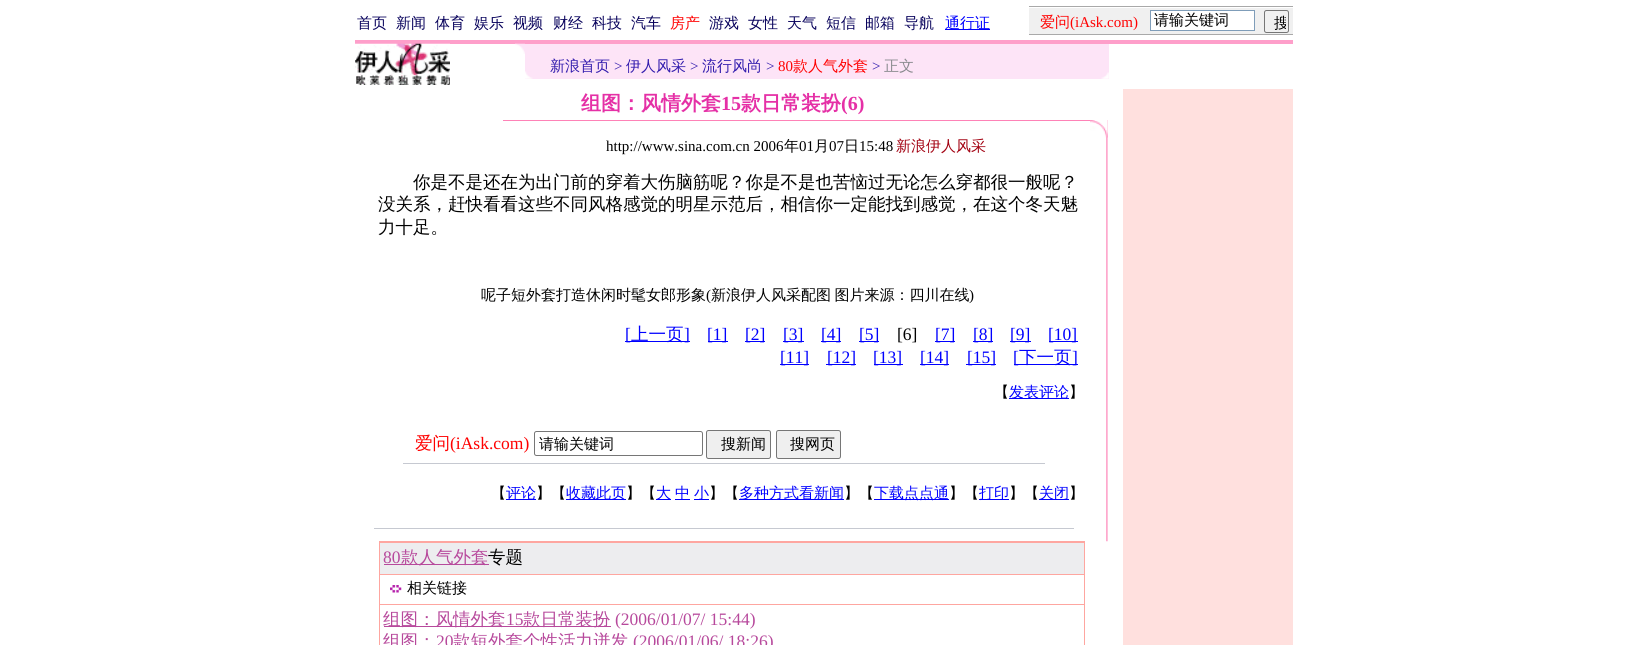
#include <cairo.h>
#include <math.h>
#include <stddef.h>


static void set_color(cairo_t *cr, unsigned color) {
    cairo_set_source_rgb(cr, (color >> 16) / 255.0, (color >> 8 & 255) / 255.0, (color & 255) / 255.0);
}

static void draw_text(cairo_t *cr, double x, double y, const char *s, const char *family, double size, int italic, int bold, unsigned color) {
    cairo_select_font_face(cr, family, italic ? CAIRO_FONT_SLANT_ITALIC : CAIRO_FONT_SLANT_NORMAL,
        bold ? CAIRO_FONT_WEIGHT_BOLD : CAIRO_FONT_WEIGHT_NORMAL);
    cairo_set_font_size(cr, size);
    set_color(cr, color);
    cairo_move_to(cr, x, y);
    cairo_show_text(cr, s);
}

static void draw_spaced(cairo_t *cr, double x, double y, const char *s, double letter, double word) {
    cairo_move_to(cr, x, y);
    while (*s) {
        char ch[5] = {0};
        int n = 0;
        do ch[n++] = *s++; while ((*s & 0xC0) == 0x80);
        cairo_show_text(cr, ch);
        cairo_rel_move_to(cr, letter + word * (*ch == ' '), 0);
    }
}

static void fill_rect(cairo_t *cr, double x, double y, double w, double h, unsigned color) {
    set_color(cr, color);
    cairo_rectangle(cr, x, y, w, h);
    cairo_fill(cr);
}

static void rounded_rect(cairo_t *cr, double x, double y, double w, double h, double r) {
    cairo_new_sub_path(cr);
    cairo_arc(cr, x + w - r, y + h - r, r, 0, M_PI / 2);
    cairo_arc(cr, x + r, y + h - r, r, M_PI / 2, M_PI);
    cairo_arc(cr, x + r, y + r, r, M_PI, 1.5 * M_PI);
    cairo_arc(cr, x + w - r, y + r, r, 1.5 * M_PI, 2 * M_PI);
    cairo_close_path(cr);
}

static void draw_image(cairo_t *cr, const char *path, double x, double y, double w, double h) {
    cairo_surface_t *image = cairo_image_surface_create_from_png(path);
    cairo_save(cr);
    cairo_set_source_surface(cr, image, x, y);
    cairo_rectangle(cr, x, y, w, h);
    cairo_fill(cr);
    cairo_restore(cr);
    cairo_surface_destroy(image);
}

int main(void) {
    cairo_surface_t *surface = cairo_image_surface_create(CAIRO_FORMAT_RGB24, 1647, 645);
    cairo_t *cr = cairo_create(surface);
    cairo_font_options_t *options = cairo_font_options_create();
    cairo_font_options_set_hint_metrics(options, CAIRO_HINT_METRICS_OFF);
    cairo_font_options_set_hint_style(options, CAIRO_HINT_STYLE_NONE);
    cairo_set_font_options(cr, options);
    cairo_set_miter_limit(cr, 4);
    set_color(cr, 0xFFFFFF);
    cairo_paint(cr);
    draw_text(cr, 357, 28, "首页", "WenQuanYi Zen Hei Medium", 15, 0, 0, 0x07015B);
    draw_text(cr, 396, 28, "新闻", "WenQuanYi Zen Hei Medium", 15, 0, 0, 0x07015B);
    draw_text(cr, 435, 28, "体育", "WenQuanYi Zen Hei Medium", 15, 0, 0, 0x07015B);
    draw_text(cr, 474, 28, "娱乐", "WenQuanYi Zen Hei Medium", 15, 0, 0, 0x07015B);
    draw_text(cr, 513, 28, "视频", "WenQuanYi Zen Hei Medium", 15, 0, 0, 0x07015B);
    draw_text(cr, 553, 28, "财经", "WenQuanYi Zen Hei Medium", 15, 0, 0, 0x07015B);
    draw_text(cr, 592, 28, "科技", "WenQuanYi Zen Hei Medium", 15, 0, 0, 0x07015B);
    draw_text(cr, 631, 28, "汽车", "WenQuanYi Zen Hei Medium", 15, 0, 0, 0x07015B);
    draw_text(cr, 670, 28, "房产", "WenQuanYi Zen Hei Medium", 15, 0, 0, 0xFF0000);
    draw_text(cr, 709, 28, "游戏", "WenQuanYi Zen Hei Medium", 15, 0, 0, 0x07015B);
    draw_text(cr, 748, 28, "女性", "WenQuanYi Zen Hei Medium", 15, 0, 0, 0x07015B);
    draw_text(cr, 787, 28, "天气", "WenQuanYi Zen Hei Medium", 15, 0, 0, 0x07015B);
    draw_text(cr, 826, 28, "短信", "WenQuanYi Zen Hei Medium", 15, 0, 0, 0x07015B);
    draw_text(cr, 865, 28, "邮箱", "WenQuanYi Zen Hei Medium", 15, 0, 0, 0x07015B);
    draw_text(cr, 904, 28, "导航", "WenQuanYi Zen Hei Medium", 15, 0, 0, 0x07015B);
    fill_rect(cr, 945, 29, 45, 1, 0x0000FF);
    draw_text(cr, 945, 28, "通行证", "WenQuanYi Zen Hei Medium", 15, 0, 0, 0x0000FF);
    fill_rect(cr, 1029, 6, 264, 1, 0xA9A9A9);
    fill_rect(cr, 1029, 8, 264, 26, 0xF0F0F0);
    draw_text(cr, 1040, 27, "爱问", "WenQuanYi Zen Hei Medium", 15, 0, 0, 0xFF0000);
    draw_text(cr, 1070, 27, "(iAsk.com)", "Liberation Serif", 15, 0, 0, 0xFF0000);
    set_color(cr, 0xFFFFFF);
    cairo_rectangle(cr, 1150.5, 10.5, 104, 20);
    cairo_fill_preserve(cr);
    set_color(cr, 0x7F9DB9);
    cairo_set_line_width(cr, 1);
    cairo_stroke(cr);
    draw_text(cr, 1154, 25, "请输关键词", "WenQuanYi Zen Hei Medium", 15, 0, 0, 0x000000);
    rounded_rect(cr, 1264.5, 10.5, 24, 22, 2);
    set_color(cr, 0x767676);
    cairo_stroke(cr);
    cairo_save(cr);
    cairo_rectangle(cr, 1266, 13, 20, 17);
    cairo_clip(cr);
    draw_text(cr, 1274, 28, "搜", "WenQuanYi Zen Hei Medium", 15, 0, 0, 0x000000);
    cairo_restore(cr);
    fill_rect(cr, 1029, 34, 264, 1, 0xA9A9A9);
    fill_rect(cr, 355, 40, 938, 4, 0xFE9FCA);
    draw_image(cr, "assets/img1.png", 355, 43, 95, 42);
    draw_image(cr, "assets/img2.png", 515, 43, 10, 11);
    fill_rect(cr, 525, 44, 584, 35, 0xFDE4F7);
    draw_text(cr, 550, 71, "新浪首页", "WenQuanYi Zen Hei Medium", 15, 0, 0, 0x311BAD);
    draw_text(cr, 614, 71, ">", "Liberation Serif", 15, 0, 0, 0x311BAD);
    draw_text(cr, 626, 71, "伊人风采", "WenQuanYi Zen Hei Medium", 15, 0, 0, 0x311BAD);
    draw_text(cr, 690, 71, ">", "Liberation Serif", 15, 0, 0, 0x311BAD);
    draw_text(cr, 702, 71, "流行风尚", "WenQuanYi Zen Hei Medium", 15, 0, 0, 0x311BAD);
    draw_text(cr, 766, 71, ">", "Liberation Serif", 15, 0, 0, 0x311BAD);
    draw_text(cr, 778, 71, "80", "Liberation Serif", 15, 0, 0, 0xFF0000);
    draw_text(cr, 793, 71, "款人气外套", "WenQuanYi Zen Hei Medium", 15, 0, 0, 0xFF0000);
    draw_text(cr, 872, 71, ">", "Liberation Serif", 15, 0, 0, 0x311BAD);
    draw_text(cr, 884, 71, "正文", "WenQuanYi Zen Hei Medium", 15, 0, 0, 0x898A8E);
    draw_image(cr, "assets/img3.png", 525, 71, 8, 8);
    draw_image(cr, "assets/img4.png", 1101, 72, 8, 7);
    draw_text(cr, 581, 110, "组图：风情外套", "WenQuanYi Zen Hei", 20, 0, 1, 0xE530A6);
    draw_text(cr, 721, 110, "15", "Liberation Serif", 20, 0, 1, 0xE530A6);
    draw_text(cr, 741, 110, "款日常装扮", "WenQuanYi Zen Hei", 20, 0, 1, 0xE530A6);
    draw_text(cr, 841, 110, "(6)", "Liberation Serif", 20, 0, 1, 0xE530A6);
    fill_rect(cr, 503, 120, 587, 1, 0xFE82B7);
    draw_text(cr, 606, 151, "http://www.sina.com.cn 2006", "Liberation Serif", 15, 0, 0, 0x000000);
    draw_text(cr, 784, 151, "年", "WenQuanYi Zen Hei Medium", 15, 0, 0, 0x000000);
    draw_text(cr, 799, 151, "01", "Liberation Serif", 15, 0, 0, 0x000000);
    draw_text(cr, 814, 151, "月", "WenQuanYi Zen Hei Medium", 15, 0, 0, 0x000000);
    draw_text(cr, 829, 151, "07", "Liberation Serif", 15, 0, 0, 0x000000);
    draw_text(cr, 844, 151, "日", "WenQuanYi Zen Hei Medium", 15, 0, 0, 0x000000);
    draw_text(cr, 859, 151, "15:48", "Liberation Serif", 15, 0, 0, 0x000000);
    draw_text(cr, 896, 151, "新浪伊人风采", "WenQuanYi Zen Hei Medium", 15, 0, 0, 0xA20010);
    draw_text(cr, 413, 188, "你是不是还在为出门前的穿着大伤脑筋呢？你是不是也苦恼过无论怎么穿都很一般呢？", "WenQuanYi Zen Hei Medium", 17.5, 0, 0, 0x000000);
    draw_text(cr, 378, 210, "没关系，赶快看看这些不同风格感觉的明星示范后，相信你一定能找到感觉，在这个冬天魅", "WenQuanYi Zen Hei Medium", 17.5, 0, 0, 0x000000);
    draw_text(cr, 378, 233, "力十足。", "WenQuanYi Zen Hei Medium", 17.5, 0, 0, 0x000000);
    draw_text(cr, 481, 300, "呢子短外套打造休闲时髦女郎形象", "WenQuanYi Zen Hei Medium", 15, 0, 0, 0x000000);
    draw_text(cr, 706, 300, "(", "Liberation Serif", 15, 0, 0, 0x000000);
    cairo_select_font_face(cr, "WenQuanYi Zen Hei Medium", CAIRO_FONT_SLANT_NORMAL, CAIRO_FONT_WEIGHT_NORMAL);
    draw_spaced(cr, 711, 300, "新浪伊人风采配图 图片来源：四川在线", 0, -1);
    draw_text(cr, 969, 300, ")", "Liberation Serif", 15, 0, 0, 0x000000);
    fill_rect(cr, 625, 341, 65, 1, 0x0000FF);
    draw_text(cr, 625, 340, "[", "Liberation Serif", 17.5, 0, 0, 0x0000FF);
    draw_text(cr, 631, 340, "上一页", "WenQuanYi Zen Hei Medium", 17.5, 0, 0, 0x0000FF);
    draw_text(cr, 684, 340, "]", "Liberation Serif", 17.5, 0, 0, 0x0000FF);
    fill_rect(cr, 708, 341, 20, 1, 0x0000FF);
    draw_text(cr, 707, 340, "[1]", "Liberation Serif", 17.5, 0, 0, 0x0000FF);
    fill_rect(cr, 745, 341, 20, 1, 0x0000FF);
    draw_text(cr, 745, 340, "[2]", "Liberation Serif", 17.5, 0, 0, 0x0000FF);
    fill_rect(cr, 783, 341, 21, 1, 0x0000FF);
    draw_text(cr, 783, 340, "[3]", "Liberation Serif", 17.5, 0, 0, 0x0000FF);
    fill_rect(cr, 821, 341, 20, 1, 0x0000FF);
    draw_text(cr, 821, 340, "[4]", "Liberation Serif", 17.5, 0, 0, 0x0000FF);
    fill_rect(cr, 859, 341, 20, 1, 0x0000FF);
    draw_text(cr, 859, 340, "[5]", "Liberation Serif", 17.5, 0, 0, 0x0000FF);
    draw_text(cr, 897, 340, "[6]", "Liberation Serif", 17.5, 0, 0, 0x000000);
    fill_rect(cr, 935, 341, 20, 1, 0x0000FF);
    draw_text(cr, 935, 340, "[7]", "Liberation Serif", 17.5, 0, 0, 0x0000FF);
    fill_rect(cr, 973, 341, 20, 1, 0x0000FF);
    draw_text(cr, 973, 340, "[8]", "Liberation Serif", 17.5, 0, 0, 0x0000FF);
    fill_rect(cr, 1010, 341, 21, 1, 0x0000FF);
    draw_text(cr, 1010, 340, "[9]", "Liberation Serif", 17.5, 0, 0, 0x0000FF);
    fill_rect(cr, 1049, 341, 29, 1, 0x0000FF);
    draw_text(cr, 1048, 340, "[10]", "Liberation Serif", 17.5, 0, 0, 0x0000FF);
    fill_rect(cr, 780, 364, 29, 1, 0x0000FF);
    draw_text(cr, 780, 363, "[11]", "Liberation Serif", 17.5, 0, 0, 0x0000FF);
    fill_rect(cr, 826, 364, 30, 1, 0x0000FF);
    draw_text(cr, 827, 363, "[12]", "Liberation Serif", 17.5, 0, 0, 0x0000FF);
    fill_rect(cr, 874, 364, 29, 1, 0x0000FF);
    draw_text(cr, 873, 363, "[13]", "Liberation Serif", 17.5, 0, 0, 0x0000FF);
    fill_rect(cr, 920, 364, 29, 1, 0x0000FF);
    draw_text(cr, 920, 363, "[14]", "Liberation Serif", 17.5, 0, 0, 0x0000FF);
    fill_rect(cr, 966, 364, 30, 1, 0x0000FF);
    draw_text(cr, 967, 363, "[15]", "Liberation Serif", 17.5, 0, 0, 0x0000FF);
    fill_rect(cr, 1014, 364, 64, 1, 0x0000FF);
    draw_text(cr, 1013, 363, "[", "Liberation Serif", 17.5, 0, 0, 0x0000FF);
    draw_text(cr, 1019, 363, "下一页", "WenQuanYi Zen Hei Medium", 17.5, 0, 0, 0x0000FF);
    draw_text(cr, 1072, 363, "]", "Liberation Serif", 17.5, 0, 0, 0x0000FF);
    draw_text(cr, 994, 397, "【", "WenQuanYi Zen Hei Medium", 15, 0, 0, 0x000000);
    fill_rect(cr, 1009, 398, 60, 1, 0x0000FF);
    draw_text(cr, 1009, 397, "发表评论", "WenQuanYi Zen Hei Medium", 15, 0, 0, 0x0000FF);
    draw_text(cr, 1069, 397, "】", "WenQuanYi Zen Hei Medium", 15, 0, 0, 0x000000);
    fill_rect(cr, 403, 463, 642, 1, 0xC6C9D1);
    draw_text(cr, 415, 449, "爱问", "WenQuanYi Zen Hei Medium", 17.5, 0, 0, 0xFF0000);
    draw_text(cr, 450, 449, "(iAsk.com)", "Liberation Serif", 17.5, 0, 0, 0xFF0000);
    rounded_rect(cr, 534.5, 431.5, 168, 24, 2);
    set_color(cr, 0x767676);
    cairo_stroke(cr);
    draw_text(cr, 539, 449, "请输关键词", "WenQuanYi Zen Hei Medium", 15, 0, 0, 0x000000);
    set_color(cr, 0xEFEFEF);
    rounded_rect(cr, 706.5, 430.5, 64, 28, 2);
    cairo_fill_preserve(cr);
    set_color(cr, 0x767676);
    cairo_stroke(cr);
    draw_text(cr, 721, 449, "搜新闻", "WenQuanYi Zen Hei Medium", 15, 0, 0, 0x000000);
    set_color(cr, 0xEFEFEF);
    rounded_rect(cr, 776.5, 430.5, 64, 28, 2);
    cairo_fill_preserve(cr);
    set_color(cr, 0x767676);
    cairo_stroke(cr);
    draw_text(cr, 790, 449, "搜网页", "WenQuanYi Zen Hei Medium", 15, 0, 0, 0x000000);
    draw_text(cr, 491, 498, "【", "WenQuanYi Zen Hei Medium", 15, 0, 0, 0x000000);
    fill_rect(cr, 506, 499, 30, 1, 0x0000FF);
    draw_text(cr, 506, 498, "评论", "WenQuanYi Zen Hei Medium", 15, 0, 0, 0x0000FF);
    draw_text(cr, 536, 498, "】【", "WenQuanYi Zen Hei Medium", 15, 0, 0, 0x000000);
    fill_rect(cr, 566, 499, 60, 1, 0x0000FF);
    draw_text(cr, 566, 498, "收藏此页", "WenQuanYi Zen Hei Medium", 15, 0, 0, 0x0000FF);
    draw_text(cr, 626, 498, "】【", "WenQuanYi Zen Hei Medium", 15, 0, 0, 0x000000);
    fill_rect(cr, 656, 499, 15, 1, 0x0000FF);
    draw_text(cr, 656, 498, "大", "WenQuanYi Zen Hei Medium", 15, 0, 0, 0x0000FF);
    fill_rect(cr, 675, 499, 15, 1, 0x0000FF);
    draw_text(cr, 675, 498, "中", "WenQuanYi Zen Hei Medium", 15, 0, 0, 0x0000FF);
    fill_rect(cr, 694, 499, 15, 1, 0x0000FF);
    draw_text(cr, 694, 498, "小", "WenQuanYi Zen Hei Medium", 15, 0, 0, 0x0000FF);
    draw_text(cr, 709, 498, "】【", "WenQuanYi Zen Hei Medium", 15, 0, 0, 0x000000);
    fill_rect(cr, 739, 499, 105, 1, 0x0000FF);
    draw_text(cr, 739, 498, "多种方式看新闻", "WenQuanYi Zen Hei Medium", 15, 0, 0, 0x0000FF);
    draw_text(cr, 844, 498, "】【", "WenQuanYi Zen Hei Medium", 15, 0, 0, 0x000000);
    fill_rect(cr, 874, 499, 75, 1, 0x0000FF);
    draw_text(cr, 874, 498, "下载点点通", "WenQuanYi Zen Hei Medium", 15, 0, 0, 0x0000FF);
    draw_text(cr, 949, 498, "】【", "WenQuanYi Zen Hei Medium", 15, 0, 0, 0x000000);
    fill_rect(cr, 979, 499, 30, 1, 0x0000FF);
    draw_text(cr, 979, 498, "打印", "WenQuanYi Zen Hei Medium", 15, 0, 0, 0x0000FF);
    draw_text(cr, 1009, 498, "】【", "WenQuanYi Zen Hei Medium", 15, 0, 0, 0x000000);
    fill_rect(cr, 1039, 499, 30, 1, 0x0000FF);
    draw_text(cr, 1039, 498, "关闭", "WenQuanYi Zen Hei Medium", 15, 0, 0, 0x0000FF);
    draw_text(cr, 1069, 498, "】", "WenQuanYi Zen Hei Medium", 15, 0, 0, 0x000000);
    fill_rect(cr, 374, 528, 700, 1, 0xC6C9D1);
    draw_image(cr, "assets/img5.png", 1106, 120, 2, 422);
    draw_image(cr, "assets/img6.png", 1090, 120, 18, 18);
    fill_rect(cr, 379, 541, 706, 104, 0xFEA6A0);
    fill_rect(cr, 380, 543, 704, 31, 0xEDEDEF);
    draw_text(cr, 383, 563, "80", "Liberation Serif", 17.5, 0, 0, 0xB7499C);
    fill_rect(cr, 384, 564, 105, 1, 0xB7499C);
    draw_text(cr, 401, 563, "款人气外套", "WenQuanYi Zen Hei Medium", 17.5, 0, 0, 0xB7499C);
    draw_text(cr, 488, 563, "专题", "WenQuanYi Zen Hei Medium", 17.5, 0, 0, 0x000000);
    fill_rect(cr, 380, 575, 704, 29, 0xFFFFFF);
    draw_image(cr, "assets/img7.png", 390, 585, 12, 8);
    draw_text(cr, 407, 593, "相关链接", "WenQuanYi Zen Hei Medium", 15, 0, 0, 0x000000);
    fill_rect(cr, 380, 605, 704, 40, 0xFFFFFF);
    fill_rect(cr, 384, 626, 227, 1, 0xB7499C);
    draw_text(cr, 383, 625, "组图：风情外套", "WenQuanYi Zen Hei Medium", 17.5, 0, 0, 0xB7499C);
    draw_text(cr, 506, 625, "15", "Liberation Serif", 17.5, 0, 0, 0xB7499C);
    draw_text(cr, 523, 625, "款日常装扮", "WenQuanYi Zen Hei Medium", 17.5, 0, 0, 0xB7499C);
    draw_text(cr, 615, 625, "(2006/01/07/ 15:44)", "Liberation Serif", 17.5, 0, 0, 0xB7499C);
    draw_text(cr, 383, 647, "组图：", "WenQuanYi Zen Hei Medium", 17.5, 0, 0, 0xB7499C);
    draw_text(cr, 436, 647, "20", "Liberation Serif", 17.5, 0, 0, 0xB7499C);
    draw_text(cr, 453, 647, "款短外套个性活力迸发", "WenQuanYi Zen Hei Medium", 17.5, 0, 0, 0xB7499C);
    draw_text(cr, 633, 647, "(2006/01/06/ 18:26)", "Liberation Serif", 17.5, 0, 0, 0xB7499C);
    fill_rect(cr, 1123, 89, 170, 556, 0xFFE0DE);
    cairo_surface_write_to_png(surface, "output.png");
    cairo_font_options_destroy(options);
    cairo_destroy(cr);
    cairo_surface_destroy(surface);
    return 0;
}
